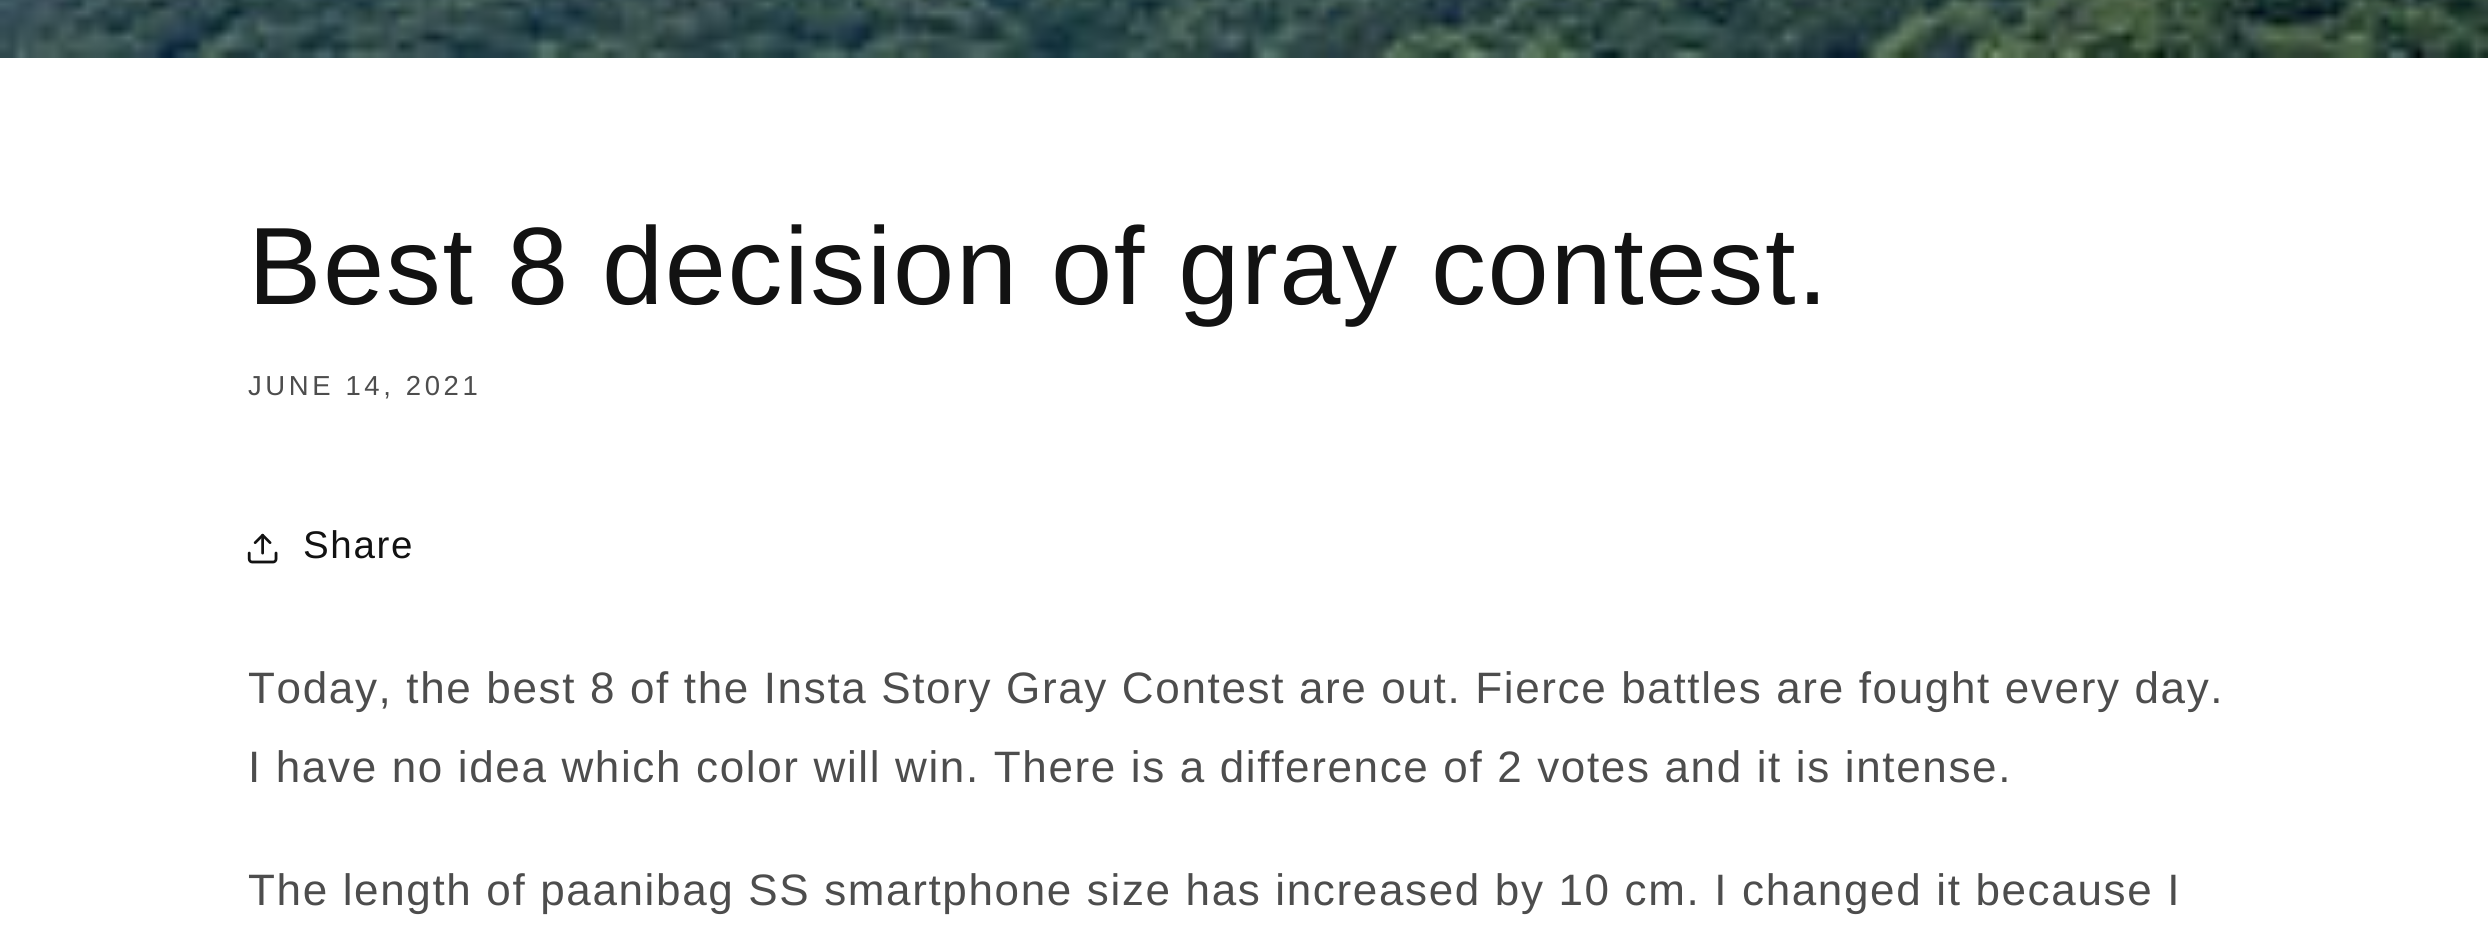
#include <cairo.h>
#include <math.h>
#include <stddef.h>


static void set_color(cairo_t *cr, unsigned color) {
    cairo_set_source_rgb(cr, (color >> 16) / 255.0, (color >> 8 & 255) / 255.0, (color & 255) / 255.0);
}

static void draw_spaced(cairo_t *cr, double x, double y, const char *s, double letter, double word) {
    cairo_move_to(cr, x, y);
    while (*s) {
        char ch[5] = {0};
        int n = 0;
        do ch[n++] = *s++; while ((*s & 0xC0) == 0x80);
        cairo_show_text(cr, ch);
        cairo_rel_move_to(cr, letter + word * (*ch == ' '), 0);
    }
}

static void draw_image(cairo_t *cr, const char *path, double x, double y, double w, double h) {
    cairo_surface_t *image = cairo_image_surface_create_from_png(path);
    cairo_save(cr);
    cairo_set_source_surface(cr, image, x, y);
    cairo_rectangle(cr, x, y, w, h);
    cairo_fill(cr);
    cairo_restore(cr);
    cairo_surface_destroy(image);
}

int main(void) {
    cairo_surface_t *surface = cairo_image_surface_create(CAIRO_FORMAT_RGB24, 2488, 925);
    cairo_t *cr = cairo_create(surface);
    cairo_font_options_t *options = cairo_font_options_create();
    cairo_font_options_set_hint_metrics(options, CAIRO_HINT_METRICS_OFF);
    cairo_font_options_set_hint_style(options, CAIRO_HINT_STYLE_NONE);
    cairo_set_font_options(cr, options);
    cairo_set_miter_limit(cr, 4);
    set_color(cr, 0xFFFFFF);
    cairo_paint(cr);
    draw_image(cr, "assets/img1.png", 0, 0, 2488, 58);
    cairo_select_font_face(cr, "Liberation Sans", CAIRO_FONT_SLANT_NORMAL, CAIRO_FONT_WEIGHT_NORMAL);
    cairo_set_font_size(cr, 110);
    set_color(cr, 0x121212);
    draw_spaced(cr, 248, 304, "Best 8 decision of gray contest.", 1.65, 0);
    cairo_set_font_size(cr, 27.5);
    set_color(cr, 0x4D4D4D);
    draw_spaced(cr, 248, 395, "JUNE 14, 2021", 3.6, 0);
    draw_image(cr, "assets/img2.png", 247, 533, 31, 31);
    cairo_set_font_size(cr, 38.5);
    set_color(cr, 0x121212);
    draw_spaced(cr, 303, 558, "Share", 1.65, 0);
    cairo_set_font_size(cr, 44);
    set_color(cr, 0x4D4D4D);
    draw_spaced(cr, 248, 703, "Today, the best 8 of the Insta Story Gray Contest are out. Fierce battles are fought every day.", 1.65, 0);
    draw_spaced(cr, 248, 782, "I have no idea which color will win. There is a difference of 2 votes and it is intense.", 1.65, 0);
    draw_spaced(cr, 248, 905, "The length of paanibag SS smartphone size has increased by 10 cm. I changed it because I", 1.65, 0);
    cairo_surface_write_to_png(surface, "output.png");
    cairo_font_options_destroy(options);
    cairo_destroy(cr);
    cairo_surface_destroy(surface);
    return 0;
}
